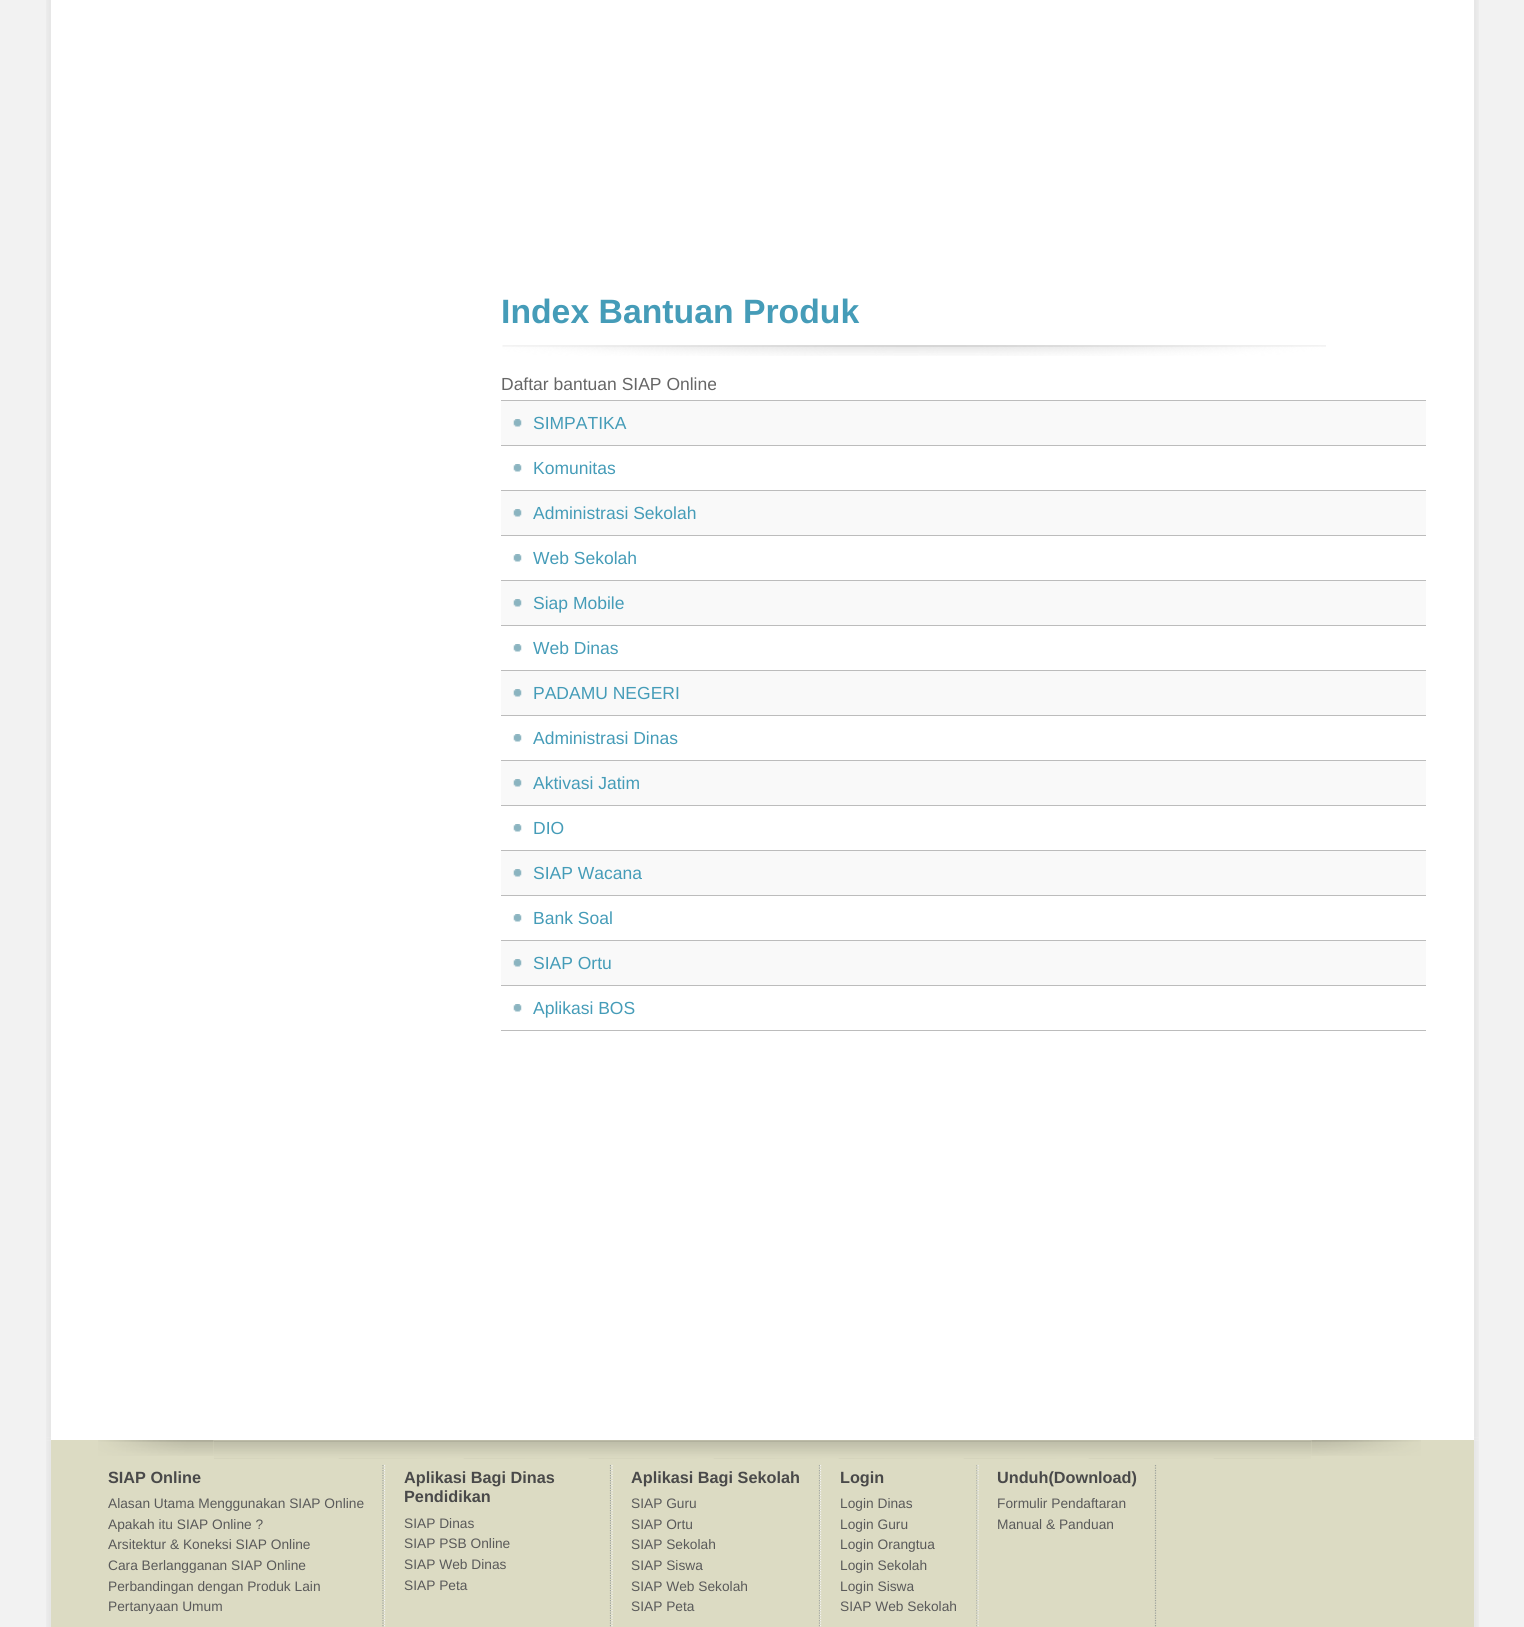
#include <cairo.h>
#include <math.h>
#include <stddef.h>


static void set_color(cairo_t *cr, unsigned color) {
    cairo_set_source_rgb(cr, (color >> 16) / 255.0, (color >> 8 & 255) / 255.0, (color & 255) / 255.0);
}

static void draw_text(cairo_t *cr, double x, double y, const char *s, const char *family, double size, int italic, int bold, unsigned color) {
    cairo_select_font_face(cr, family, italic ? CAIRO_FONT_SLANT_ITALIC : CAIRO_FONT_SLANT_NORMAL,
        bold ? CAIRO_FONT_WEIGHT_BOLD : CAIRO_FONT_WEIGHT_NORMAL);
    cairo_set_font_size(cr, size);
    set_color(cr, color);
    cairo_move_to(cr, x, y);
    cairo_show_text(cr, s);
}

static void fill_rect(cairo_t *cr, double x, double y, double w, double h, unsigned color) {
    set_color(cr, color);
    cairo_rectangle(cr, x, y, w, h);
    cairo_fill(cr);
}

static void draw_image(cairo_t *cr, const char *path, double x, double y, double w, double h) {
    cairo_surface_t *image = cairo_image_surface_create_from_png(path);
    cairo_save(cr);
    cairo_set_source_surface(cr, image, x, y);
    cairo_rectangle(cr, x, y, w, h);
    cairo_fill(cr);
    cairo_restore(cr);
    cairo_surface_destroy(image);
}

int main(void) {
    cairo_surface_t *surface = cairo_image_surface_create(CAIRO_FORMAT_RGB24, 1524, 1627);
    cairo_t *cr = cairo_create(surface);
    cairo_font_options_t *options = cairo_font_options_create();
    cairo_font_options_set_hint_metrics(options, CAIRO_HINT_METRICS_OFF);
    cairo_font_options_set_hint_style(options, CAIRO_HINT_STYLE_NONE);
    cairo_set_font_options(cr, options);
    cairo_set_miter_limit(cr, 4);
    set_color(cr, 0xF2F2F2);
    cairo_paint(cr);
    draw_image(cr, "assets/img1.png", 46, 0, 5, 1438);
    draw_image(cr, "assets/img2.png", 1474, 0, 5, 1438);
    fill_rect(cr, 51, 0, 1423, 1440, 0xFFFFFF);
    draw_text(cr, 501, 323, "Index Bantuan Produk", "Liberation Sans", 33.75, 0, 1, 0x459CB8);
    draw_image(cr, "assets/img3.png", 502, 345, 824, 11);
    draw_text(cr, 501, 390, "Daftar bantuan SIAP Online", "Liberation Sans", 17.5, 0, 0, 0x666666);
    fill_rect(cr, 501, 401, 925, 44, 0xF9F9F9);
    draw_image(cr, "assets/img4.png", 513, 419, 9, 8);
    fill_rect(cr, 501, 400, 925, 1, 0xBCBCBC);
    fill_rect(cr, 501, 445, 925, 1, 0xBCBCBC);
    draw_text(cr, 533, 429, "SIMPATIKA", "Liberation Sans", 17.5, 0, 0, 0x459CB8);
    draw_image(cr, "assets/img5.png", 513, 464, 9, 8);
    fill_rect(cr, 501, 490, 925, 1, 0xBCBCBC);
    draw_text(cr, 533, 474, "Komunitas", "Liberation Sans", 17.5, 0, 0, 0x459CB8);
    fill_rect(cr, 501, 491, 925, 44, 0xF9F9F9);
    draw_image(cr, "assets/img4.png", 513, 509, 9, 8);
    fill_rect(cr, 501, 535, 925, 1, 0xBCBCBC);
    draw_text(cr, 533, 519, "Administrasi Sekolah", "Liberation Sans", 17.5, 0, 0, 0x459CB8);
    draw_image(cr, "assets/img5.png", 513, 554, 9, 8);
    fill_rect(cr, 501, 580, 925, 1, 0xBCBCBC);
    draw_text(cr, 533, 564, "Web Sekolah", "Liberation Sans", 17.5, 0, 0, 0x459CB8);
    fill_rect(cr, 501, 581, 925, 44, 0xF9F9F9);
    draw_image(cr, "assets/img4.png", 513, 599, 9, 8);
    fill_rect(cr, 501, 625, 925, 1, 0xBCBCBC);
    draw_text(cr, 533, 609, "Siap Mobile", "Liberation Sans", 17.5, 0, 0, 0x459CB8);
    draw_image(cr, "assets/img5.png", 513, 644, 9, 8);
    fill_rect(cr, 501, 670, 925, 1, 0xBCBCBC);
    draw_text(cr, 533, 654, "Web Dinas", "Liberation Sans", 17.5, 0, 0, 0x459CB8);
    fill_rect(cr, 501, 671, 925, 44, 0xF9F9F9);
    draw_image(cr, "assets/img4.png", 513, 689, 9, 8);
    fill_rect(cr, 501, 715, 925, 1, 0xBCBCBC);
    draw_text(cr, 533, 699, "PADAMU NEGERI", "Liberation Sans", 17.5, 0, 0, 0x459CB8);
    draw_image(cr, "assets/img5.png", 513, 734, 9, 8);
    fill_rect(cr, 501, 760, 925, 1, 0xBCBCBC);
    draw_text(cr, 533, 744, "Administrasi Dinas", "Liberation Sans", 17.5, 0, 0, 0x459CB8);
    fill_rect(cr, 501, 761, 925, 44, 0xF9F9F9);
    draw_image(cr, "assets/img4.png", 513, 779, 9, 8);
    fill_rect(cr, 501, 805, 925, 1, 0xBCBCBC);
    draw_text(cr, 533, 789, "Aktivasi Jatim", "Liberation Sans", 17.5, 0, 0, 0x459CB8);
    draw_image(cr, "assets/img5.png", 513, 824, 9, 8);
    fill_rect(cr, 501, 850, 925, 1, 0xBCBCBC);
    draw_text(cr, 533, 834, "DIO", "Liberation Sans", 17.5, 0, 0, 0x459CB8);
    fill_rect(cr, 501, 851, 925, 44, 0xF9F9F9);
    draw_image(cr, "assets/img4.png", 513, 869, 9, 8);
    fill_rect(cr, 501, 895, 925, 1, 0xBCBCBC);
    draw_text(cr, 533, 879, "SIAP Wacana", "Liberation Sans", 17.5, 0, 0, 0x459CB8);
    draw_image(cr, "assets/img5.png", 513, 914, 9, 8);
    fill_rect(cr, 501, 940, 925, 1, 0xBCBCBC);
    draw_text(cr, 533, 924, "Bank Soal", "Liberation Sans", 17.5, 0, 0, 0x459CB8);
    fill_rect(cr, 501, 941, 925, 44, 0xF9F9F9);
    draw_image(cr, "assets/img4.png", 513, 959, 9, 8);
    fill_rect(cr, 501, 985, 925, 1, 0xBCBCBC);
    draw_text(cr, 533, 969, "SIAP Ortu", "Liberation Sans", 17.5, 0, 0, 0x459CB8);
    draw_image(cr, "assets/img5.png", 513, 1004, 9, 8);
    fill_rect(cr, 501, 1030, 925, 1, 0xBCBCBC);
    draw_text(cr, 533, 1014, "Aplikasi BOS", "Liberation Sans", 17.5, 0, 0, 0x459CB8);
    draw_image(cr, "assets/img6.png", 46, 1438, 5, 2);
    draw_image(cr, "assets/img7.png", 1474, 1438, 5, 2);
    draw_image(cr, "assets/img8.png", 46, 1440, 5, 187);
    draw_image(cr, "assets/img9.png", 1474, 1440, 5, 187);
    fill_rect(cr, 51, 1440, 1423, 187, 0xDCDBC3);
    draw_image(cr, "assets/img10.png", 1311, 1440, 110, 16);
    draw_image(cr, "assets/img11.png", 98, 1440, 116, 16);
    draw_image(cr, "assets/img12.png", 214, 1440, 1097, 19);
    cairo_new_path(cr);
    cairo_move_to(cr, 383, 1465);
    cairo_line_to(cr, 383, 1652.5);
    set_color(cr, 0x9DA29C);
    cairo_set_line_width(cr, 1.2);
    cairo_set_dash(cr, (double[]){1.25, 1.25}, 2, 0);
    cairo_stroke(cr);
    draw_text(cr, 108, 1483, "SIAP Online", "Liberation Sans", 16.25, 0, 1, 0x494949);
    draw_text(cr, 108, 1508, "Alasan Utama Menggunakan SIAP Online", "Liberation Sans", 13.75, 0, 0, 0x5A5A5A);
    draw_text(cr, 108, 1529, "Apakah itu SIAP Online ?", "Liberation Sans", 13.75, 0, 0, 0x5A5A5A);
    draw_text(cr, 108, 1549, "Arsitektur & Koneksi SIAP Online", "Liberation Sans", 13.75, 0, 0, 0x5A5A5A);
    draw_text(cr, 108, 1570, "Cara Berlangganan SIAP Online", "Liberation Sans", 13.75, 0, 0, 0x5A5A5A);
    draw_text(cr, 108, 1591, "Perbandingan dengan Produk Lain", "Liberation Sans", 13.75, 0, 0, 0x5A5A5A);
    draw_text(cr, 108, 1611, "Pertanyaan Umum", "Liberation Sans", 13.75, 0, 0, 0x5A5A5A);
    cairo_new_path(cr);
    cairo_move_to(cr, 610.5, 1465);
    cairo_line_to(cr, 610.5, 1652.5);
    set_color(cr, 0x9DA29C);
    cairo_stroke(cr);
    cairo_new_path(cr);
    cairo_move_to(cr, 384.5, 1465);
    cairo_line_to(cr, 384.5, 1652.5);
    set_color(cr, 0xF5F5F5);
    cairo_stroke(cr);
    draw_text(cr, 404, 1483, "Aplikasi Bagi Dinas", "Liberation Sans", 16.25, 0, 1, 0x494949);
    draw_text(cr, 404, 1502, "Pendidikan", "Liberation Sans", 16.25, 0, 1, 0x494949);
    draw_text(cr, 404, 1528, "SIAP Dinas", "Liberation Sans", 13.75, 0, 0, 0x5A5A5A);
    draw_text(cr, 404, 1548, "SIAP PSB Online", "Liberation Sans", 13.75, 0, 0, 0x5A5A5A);
    draw_text(cr, 404, 1569, "SIAP Web Dinas", "Liberation Sans", 13.75, 0, 0, 0x5A5A5A);
    draw_text(cr, 404, 1590, "SIAP Peta", "Liberation Sans", 13.75, 0, 0, 0x5A5A5A);
    cairo_new_path(cr);
    cairo_move_to(cr, 819.5, 1465);
    cairo_line_to(cr, 819.5, 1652.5);
    set_color(cr, 0x9DA29C);
    cairo_stroke(cr);
    cairo_new_path(cr);
    cairo_move_to(cr, 612, 1465);
    cairo_line_to(cr, 612, 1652.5);
    set_color(cr, 0xF5F5F5);
    cairo_stroke(cr);
    draw_text(cr, 631, 1483, "Aplikasi Bagi Sekolah", "Liberation Sans", 16.25, 0, 1, 0x494949);
    draw_text(cr, 631, 1508, "SIAP Guru", "Liberation Sans", 13.75, 0, 0, 0x5A5A5A);
    draw_text(cr, 631, 1529, "SIAP Ortu", "Liberation Sans", 13.75, 0, 0, 0x5A5A5A);
    draw_text(cr, 631, 1549, "SIAP Sekolah", "Liberation Sans", 13.75, 0, 0, 0x5A5A5A);
    draw_text(cr, 631, 1570, "SIAP Siswa", "Liberation Sans", 13.75, 0, 0, 0x5A5A5A);
    draw_text(cr, 631, 1591, "SIAP Web Sekolah", "Liberation Sans", 13.75, 0, 0, 0x5A5A5A);
    draw_text(cr, 631, 1611, "SIAP Peta", "Liberation Sans", 13.75, 0, 0, 0x5A5A5A);
    cairo_new_path(cr);
    cairo_move_to(cr, 977, 1465);
    cairo_line_to(cr, 977, 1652.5);
    set_color(cr, 0x9DA29C);
    cairo_stroke(cr);
    cairo_new_path(cr);
    cairo_move_to(cr, 820.5, 1465);
    cairo_line_to(cr, 820.5, 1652.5);
    set_color(cr, 0xF5F5F5);
    cairo_stroke(cr);
    draw_text(cr, 840, 1483, "Login", "Liberation Sans", 16.25, 0, 1, 0x494949);
    draw_text(cr, 840, 1508, "Login Dinas", "Liberation Sans", 13.75, 0, 0, 0x5A5A5A);
    draw_text(cr, 840, 1529, "Login Guru", "Liberation Sans", 13.75, 0, 0, 0x5A5A5A);
    draw_text(cr, 840, 1549, "Login Orangtua", "Liberation Sans", 13.75, 0, 0, 0x5A5A5A);
    draw_text(cr, 840, 1570, "Login Sekolah", "Liberation Sans", 13.75, 0, 0, 0x5A5A5A);
    draw_text(cr, 840, 1591, "Login Siswa", "Liberation Sans", 13.75, 0, 0, 0x5A5A5A);
    draw_text(cr, 840, 1611, "SIAP Web Sekolah", "Liberation Sans", 13.75, 0, 0, 0x5A5A5A);
    cairo_new_path(cr);
    cairo_move_to(cr, 1155.5, 1465);
    cairo_line_to(cr, 1155.5, 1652.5);
    set_color(cr, 0x9DA29C);
    cairo_stroke(cr);
    cairo_new_path(cr);
    cairo_move_to(cr, 978, 1465);
    cairo_line_to(cr, 978, 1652.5);
    set_color(cr, 0xF5F5F5);
    cairo_stroke(cr);
    draw_text(cr, 997, 1483, "Unduh(Download)", "Liberation Sans", 16.25, 0, 1, 0x494949);
    draw_text(cr, 997, 1508, "Formulir Pendaftaran", "Liberation Sans", 13.75, 0, 0, 0x5A5A5A);
    draw_text(cr, 997, 1529, "Manual & Panduan", "Liberation Sans", 13.75, 0, 0, 0x5A5A5A);
    cairo_surface_write_to_png(surface, "output.png");
    cairo_font_options_destroy(options);
    cairo_destroy(cr);
    cairo_surface_destroy(surface);
    return 0;
}
